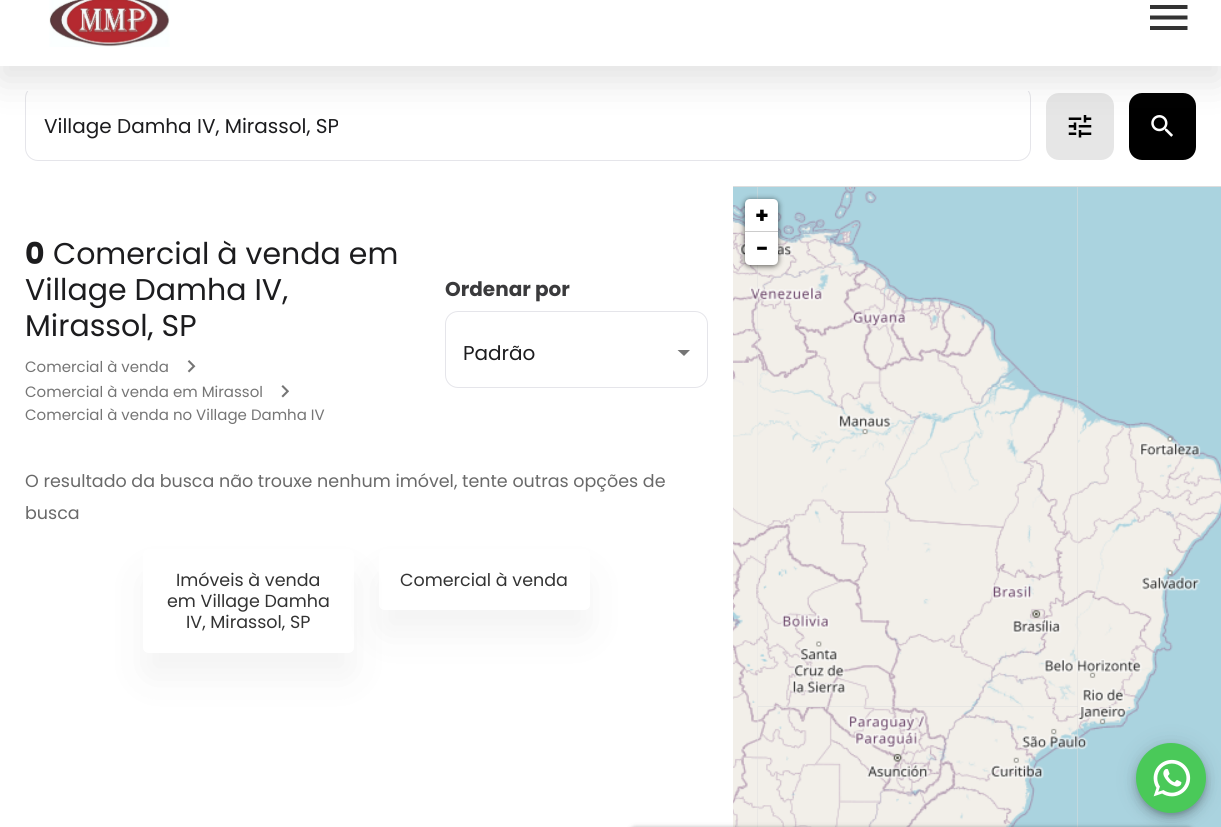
#include <cairo.h>
#include <math.h>
#include <stddef.h>


static void set_color(cairo_t *cr, unsigned color) {
    cairo_set_source_rgb(cr, (color >> 16) / 255.0, (color >> 8 & 255) / 255.0, (color & 255) / 255.0);
}

static void draw_text(cairo_t *cr, double x, double y, const char *s, const char *family, double size, int italic, int bold, unsigned color) {
    cairo_select_font_face(cr, family, italic ? CAIRO_FONT_SLANT_ITALIC : CAIRO_FONT_SLANT_NORMAL,
        bold ? CAIRO_FONT_WEIGHT_BOLD : CAIRO_FONT_WEIGHT_NORMAL);
    cairo_set_font_size(cr, size);
    set_color(cr, color);
    cairo_move_to(cr, x, y);
    cairo_show_text(cr, s);
}

static void fill_rect(cairo_t *cr, double x, double y, double w, double h, unsigned color) {
    set_color(cr, color);
    cairo_rectangle(cr, x, y, w, h);
    cairo_fill(cr);
}

static void rounded_rect(cairo_t *cr, double x, double y, double w, double h, double r) {
    cairo_new_sub_path(cr);
    cairo_arc(cr, x + w - r, y + h - r, r, 0, M_PI / 2);
    cairo_arc(cr, x + r, y + h - r, r, M_PI / 2, M_PI);
    cairo_arc(cr, x + r, y + r, r, M_PI, 1.5 * M_PI);
    cairo_arc(cr, x + w - r, y + r, r, 1.5 * M_PI, 2 * M_PI);
    cairo_close_path(cr);
}

static void draw_shadow(cairo_t *cr, double x, double y, double w, double h, double r, double blur, double alpha) {
    cairo_push_group_with_content(cr, CAIRO_CONTENT_ALPHA);
    cairo_set_operator(cr, CAIRO_OPERATOR_SOURCE);
    for (int i = 15; i >= -15 && fmin(w, h) + blur * i / 3 > 0; i -= 2) {
        double e = blur * i / 6;
        cairo_set_source_rgba(cr, 0, 0, 0, alpha * erfc((i - 1) / 8.5) / 2);
        rounded_rect(cr, x - e, y - e, w + 2 * e, h + 2 * e, fmax(0, fmin(r + e + blur * .6, fmin(w, h) / 2 + e)));
        cairo_fill(cr);
    }
    cairo_pattern_t *soft = cairo_pop_group(cr);
    cairo_mask(cr, soft);
    cairo_pattern_destroy(soft);
}

static void draw_image(cairo_t *cr, const char *path, double x, double y, double w, double h) {
    cairo_surface_t *image = cairo_image_surface_create_from_png(path);
    cairo_save(cr);
    cairo_set_source_surface(cr, image, x, y);
    cairo_rectangle(cr, x, y, w, h);
    cairo_fill(cr);
    cairo_restore(cr);
    cairo_surface_destroy(image);
}

int main(void) {
    cairo_surface_t *surface = cairo_image_surface_create(CAIRO_FORMAT_RGB24, 1221, 827);
    cairo_t *cr = cairo_create(surface);
    cairo_font_options_t *options = cairo_font_options_create();
    cairo_font_options_set_hint_metrics(options, CAIRO_HINT_METRICS_OFF);
    cairo_font_options_set_hint_style(options, CAIRO_HINT_STYLE_NONE);
    cairo_set_font_options(cr, options);
    cairo_set_miter_limit(cr, 4);
    set_color(cr, 0xFFFFFF);
    cairo_paint(cr);
    cairo_save(cr);
    cairo_rectangle(cr, 18, 91, 1021, 70);
    cairo_clip(cr);
    rounded_rect(cr, 25.5, 85.5, 1005, 75, 12.5);
    set_color(cr, 0xE5E5EA);
    cairo_set_line_width(cr, 1);
    cairo_stroke(cr);
    cairo_restore(cr);
    set_color(cr, 0xE6E6E6);
    rounded_rect(cr, 1046, 93, 68, 67, 13);
    cairo_fill(cr);
    draw_image(cr, "assets/img2.png", 1068, 115, 24, 23);
    set_color(cr, 0x000000);
    rounded_rect(cr, 1129, 93, 67, 67, 13);
    cairo_fill(cr);
    draw_image(cr, "assets/img3.png", 1151, 115, 22, 22);
    set_color(cr, 0x333333);
    draw_shadow(cr, 0, -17, 1221, 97, 0, 19, 0.15);
    fill_rect(cr, 0, 0, 1221, 66, 0xFFFFFF);
    draw_image(cr, "assets/img1.png", 49, 0, 121, 47);
    set_color(cr, 0x333333);
    cairo_new_path(cr);
    cairo_move_to(cr, 1150, 30);
    cairo_line_to(cr, 1187.5, 30);
    cairo_line_to(cr, 1187.5, 26);
    cairo_line_to(cr, 1150, 26);
    cairo_close_path(cr);
    cairo_move_to(cr, 1150, 19.5);
    cairo_line_to(cr, 1187.5, 19.5);
    cairo_line_to(cr, 1187.5, 15.5);
    cairo_line_to(cr, 1150, 15.5);
    cairo_close_path(cr);
    cairo_move_to(cr, 1150, 5);
    cairo_line_to(cr, 1150, 9);
    cairo_line_to(cr, 1187.5, 9);
    cairo_line_to(cr, 1187.5, 5);
    cairo_close_path(cr);
    cairo_fill(cr);
    draw_text(cr, 44, 133, "Village Damha IV, Mirassol, SP", "Poppins", 20, 0, 0, 0x1C1C1E);
    fill_rect(cr, 733, 186, 488, 641, 0xDDDDDD);
    draw_image(cr, "assets/img7.png", 757, 386, 321, 321);
    draw_image(cr, "assets/img4.png", 733, 187, 25, 200);
    draw_image(cr, "assets/img5.png", 758, 187, 320, 200);
    fill_rect(cr, 1078, 187, 143, 200, 0xAAD3DF);
    draw_image(cr, "assets/img6.png", 733, 387, 25, 320);
    draw_image(cr, "assets/img8.png", 1078, 387, 143, 320);
    draw_image(cr, "assets/img9.png", 733, 707, 25, 120);
    draw_image(cr, "assets/img10.png", 758, 707, 320, 120);
    draw_image(cr, "assets/img11.png", 1078, 707, 143, 120);
    set_color(cr, 0x000000);
    draw_shadow(cr, 745, 200, 33, 66, 5, 3, 0.65);
    set_color(cr, 0xFFFFFF);
    cairo_new_path(cr);
    cairo_move_to(cr, 750, 199);
    cairo_line_to(cr, 773, 199);
    cairo_curve_to(cr, 776, 199, 778, 201, 778, 204);
    cairo_line_to(cr, 778, 233);
    cairo_line_to(cr, 745, 233);
    cairo_line_to(cr, 745, 204);
    cairo_curve_to(cr, 745, 201, 747, 199, 750, 199);
    cairo_close_path(cr);
    cairo_fill(cr);
    fill_rect(cr, 745, 231, 33, 1, 0xCCCCCC);
    draw_text(cr, 755, 223, "+", "Poppins", 22, 0, 1, 0x000000);
    set_color(cr, 0xFFFFFF);
    cairo_new_path(cr);
    cairo_move_to(cr, 745, 233);
    cairo_line_to(cr, 778, 233);
    cairo_line_to(cr, 778, 260);
    cairo_curve_to(cr, 778, 263, 776, 265, 773, 265);
    cairo_line_to(cr, 750, 265);
    cairo_curve_to(cr, 747, 265, 745, 263, 745, 260);
    cairo_close_path(cr);
    cairo_fill(cr);
    draw_text(cr, 756, 256, "−", "Poppins", 22, 0, 1, 0x000000);
    draw_text(cr, 25, 264, "0", "Poppins", 30, 0, 1, 0x1C1C1E);
    draw_text(cr, 53, 264, "Comercial à venda em", "Poppins", 30, 0, 0, 0x1C1C1E);
    draw_text(cr, 25, 300, "Village Damha IV,", "Poppins", 30, 0, 0, 0x1C1C1E);
    draw_text(cr, 25, 336, "Mirassol, SP", "Poppins", 30, 0, 0, 0x1C1C1E);
    draw_text(cr, 25, 372, "Comercial à venda", "Poppins", 15, 0, 0, 0x757575);
    draw_image(cr, "assets/img12.png", 187, 360, 9, 13);
    draw_text(cr, 25, 397, "Comercial à venda em Mirassol", "Poppins", 15, 0, 0, 0x757575);
    draw_image(cr, "assets/img13.png", 281, 385, 8, 13);
    draw_text(cr, 25, 420, "Comercial à venda no Village Damha IV", "Poppins", 15, 0, 0, 0x757575);
    draw_text(cr, 445, 296, "Ordenar por", "Poppins", 20, 0, 1, 0x3A3A3C);
    set_color(cr, 0x757575);
    cairo_new_path(cr);
    cairo_move_to(cr, 677.5, 350);
    cairo_line_to(cr, 684, 356);
    cairo_line_to(cr, 690, 350);
    cairo_close_path(cr);
    cairo_fill(cr);
    rounded_rect(cr, 445.5, 311.5, 262, 76, 12.5);
    set_color(cr, 0xE5E5EA);
    cairo_set_line_width(cr, 1);
    cairo_stroke(cr);
    draw_text(cr, 463, 360, "Padrão", "Poppins", 20, 0, 0, 0x1C1C1E);
    draw_text(cr, 25, 487, "O resultado da busca não trouxe nenhum imóvel, tente outras opções de", "Poppins", 17.5, 0, 0, 0x696969);
    draw_text(cr, 25, 519, "busca", "Poppins", 17.5, 0, 0, 0x696969);
    cairo_save(cr);
    cairo_set_fill_rule(cr, CAIRO_FILL_RULE_EVEN_ODD);
    cairo_new_path(cr);
    cairo_move_to(cr, 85, 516);
    cairo_line_to(cr, 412, 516);
    cairo_line_to(cr, 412, 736);
    cairo_line_to(cr, 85, 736);
    cairo_close_path(cr);
    cairo_move_to(cr, 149, 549);
    cairo_line_to(cr, 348, 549);
    cairo_curve_to(cr, 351.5, 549, 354, 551.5, 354, 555);
    cairo_line_to(cr, 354, 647);
    cairo_curve_to(cr, 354, 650.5, 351.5, 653, 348, 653);
    cairo_line_to(cr, 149, 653);
    cairo_curve_to(cr, 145.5, 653, 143, 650.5, 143, 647);
    cairo_line_to(cr, 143, 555);
    cairo_curve_to(cr, 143, 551.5, 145.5, 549, 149, 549);
    cairo_close_path(cr);
    cairo_clip(cr);
    set_color(cr, 0x333333);
    draw_shadow(cr, 143, 574, 211, 104, 6, 19, 0.06);
    cairo_restore(cr);
    draw_text(cr, 176, 586, "Imóveis à venda", "Poppins", 17.5, 0, 0, 0x333333);
    draw_text(cr, 167, 607, "em Village Damha", "Poppins", 17.5, 0, 0, 0x333333);
    draw_text(cr, 186, 628, "IV, Mirassol, SP", "Poppins", 17.5, 0, 0, 0x333333);
    cairo_save(cr);
    cairo_set_fill_rule(cr, CAIRO_FILL_RULE_EVEN_ODD);
    cairo_new_path(cr);
    cairo_move_to(cr, 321, 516);
    cairo_line_to(cr, 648, 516);
    cairo_line_to(cr, 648, 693);
    cairo_line_to(cr, 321, 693);
    cairo_close_path(cr);
    cairo_move_to(cr, 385, 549);
    cairo_line_to(cr, 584, 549);
    cairo_curve_to(cr, 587.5, 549, 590, 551.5, 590, 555);
    cairo_line_to(cr, 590, 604);
    cairo_curve_to(cr, 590, 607.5, 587.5, 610, 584, 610);
    cairo_line_to(cr, 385, 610);
    cairo_curve_to(cr, 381.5, 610, 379, 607.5, 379, 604);
    cairo_line_to(cr, 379, 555);
    cairo_curve_to(cr, 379, 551.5, 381.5, 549, 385, 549);
    cairo_close_path(cr);
    cairo_clip(cr);
    set_color(cr, 0x333333);
    draw_shadow(cr, 379, 574, 211, 61, 6, 19, 0.06);
    cairo_restore(cr);
    draw_text(cr, 400, 586, "Comercial à venda", "Poppins", 17.5, 0, 0, 0x333333);
    set_color(cr, 0x000000);
    draw_shadow(cr, 1136, 744, 70, 70, 35, 11, 0.12);
    draw_shadow(cr, 1136, 750, 70, 70, 35, 6, 0.14);
    draw_shadow(cr, 1138, 748, 67, 67, 33.5, 3, 0.2);
    set_color(cr, 0x4AC959);
    cairo_arc(cr, 1171, 778, 35, 0, 2 * M_PI);
    cairo_fill(cr);
    draw_image(cr, "assets/img14.png", 1153, 759, 38, 38);
    set_color(cr, 0x000000);
    draw_shadow(cr, 630, 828, 563, 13, 6, 2.5, 0.4);
    cairo_surface_write_to_png(surface, "output.png");
    cairo_font_options_destroy(options);
    cairo_destroy(cr);
    cairo_surface_destroy(surface);
    return 0;
}
